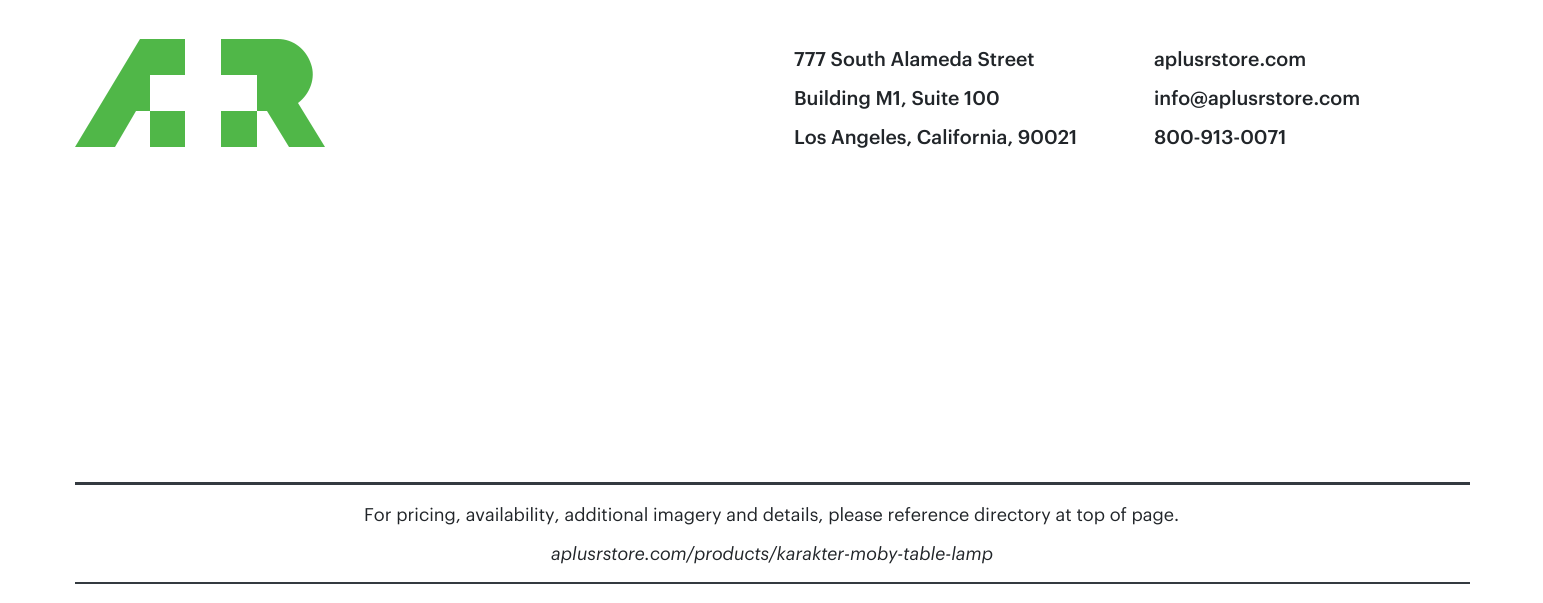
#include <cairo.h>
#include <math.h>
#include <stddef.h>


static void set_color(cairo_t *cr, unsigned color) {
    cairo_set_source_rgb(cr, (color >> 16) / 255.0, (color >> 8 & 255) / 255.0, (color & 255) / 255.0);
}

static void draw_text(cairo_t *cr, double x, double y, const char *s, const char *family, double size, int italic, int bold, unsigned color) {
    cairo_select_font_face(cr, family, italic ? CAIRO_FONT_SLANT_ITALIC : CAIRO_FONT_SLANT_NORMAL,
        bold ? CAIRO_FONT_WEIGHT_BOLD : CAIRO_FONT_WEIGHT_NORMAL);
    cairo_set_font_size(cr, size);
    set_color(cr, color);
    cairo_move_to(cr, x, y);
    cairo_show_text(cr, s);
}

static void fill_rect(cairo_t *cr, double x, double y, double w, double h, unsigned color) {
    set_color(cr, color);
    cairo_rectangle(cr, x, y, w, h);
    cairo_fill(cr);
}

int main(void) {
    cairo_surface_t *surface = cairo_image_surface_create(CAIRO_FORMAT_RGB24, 1543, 603);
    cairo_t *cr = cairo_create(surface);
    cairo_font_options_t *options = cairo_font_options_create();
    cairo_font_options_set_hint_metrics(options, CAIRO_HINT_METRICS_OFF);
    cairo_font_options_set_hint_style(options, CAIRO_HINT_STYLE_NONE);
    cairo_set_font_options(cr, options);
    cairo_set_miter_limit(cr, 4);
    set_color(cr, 0xFFFFFF);
    cairo_paint(cr);
    set_color(cr, 0x50B748);
    cairo_new_path(cr);
    cairo_move_to(cr, 150, 147);
    cairo_line_to(cr, 150, 111);
    cairo_line_to(cr, 185, 111);
    cairo_line_to(cr, 185, 147);
    cairo_close_path(cr);
    cairo_move_to(cr, 221, 147);
    cairo_line_to(cr, 257, 147);
    cairo_line_to(cr, 257, 111);
    cairo_line_to(cr, 221, 111);
    cairo_close_path(cr);
    cairo_move_to(cr, 140, 39);
    cairo_line_to(cr, 75, 147);
    cairo_line_to(cr, 115, 147);
    cairo_line_to(cr, 136, 111);
    cairo_line_to(cr, 150, 111);
    cairo_line_to(cr, 150, 75);
    cairo_line_to(cr, 185, 75);
    cairo_line_to(cr, 185, 39);
    cairo_close_path(cr);
    cairo_move_to(cr, 298, 103);
    cairo_curve_to(cr, 310, 94, 316, 78, 311, 64);
    cairo_curve_to(cr, 306, 49, 293, 39, 278, 39);
    cairo_line_to(cr, 221, 39);
    cairo_line_to(cr, 221, 75);
    cairo_line_to(cr, 257, 75);
    cairo_line_to(cr, 257, 111);
    cairo_line_to(cr, 267, 111);
    cairo_line_to(cr, 289, 147);
    cairo_line_to(cr, 325, 147);
    cairo_close_path(cr);
    cairo_fill(cr);
    draw_text(cr, 794, 66, "777 South Alameda Street", "Graphik Medium", 19.5, 0, 0, 0x212529);
    draw_text(cr, 794, 105, "Building M1, Suite 100", "Graphik Medium", 19.5, 0, 0, 0x212529);
    draw_text(cr, 794, 144, "Los Angeles, California, 90021", "Graphik Medium", 19.5, 0, 0, 0x212529);
    draw_text(cr, 1154, 66, "aplusrstore.com", "Graphik Medium", 19.5, 0, 0, 0x212529);
    draw_text(cr, 1154, 105, "info@aplusrstore.com", "Graphik Medium", 19.5, 0, 0, 0x212529);
    draw_text(cr, 1154, 144, "800-913-0071", "Graphik Medium", 19.5, 0, 0, 0x212529);
    fill_rect(cr, 75, 482, 1395, 3, 0x343A40);
    draw_text(cr, 364, 521, "For pricing, availability, additional imagery and details, please reference directory at top of page.", "Graphik", 18, 0, 0, 0x212529);
    draw_text(cr, 551, 560, "aplusrstore.com/products/karakter-moby-table-lamp", "Graphik", 18, 1, 0, 0x212529);
    fill_rect(cr, 75, 582, 1395, 2, 0x343A40);
    cairo_surface_write_to_png(surface, "output.png");
    cairo_font_options_destroy(options);
    cairo_destroy(cr);
    cairo_surface_destroy(surface);
    return 0;
}
